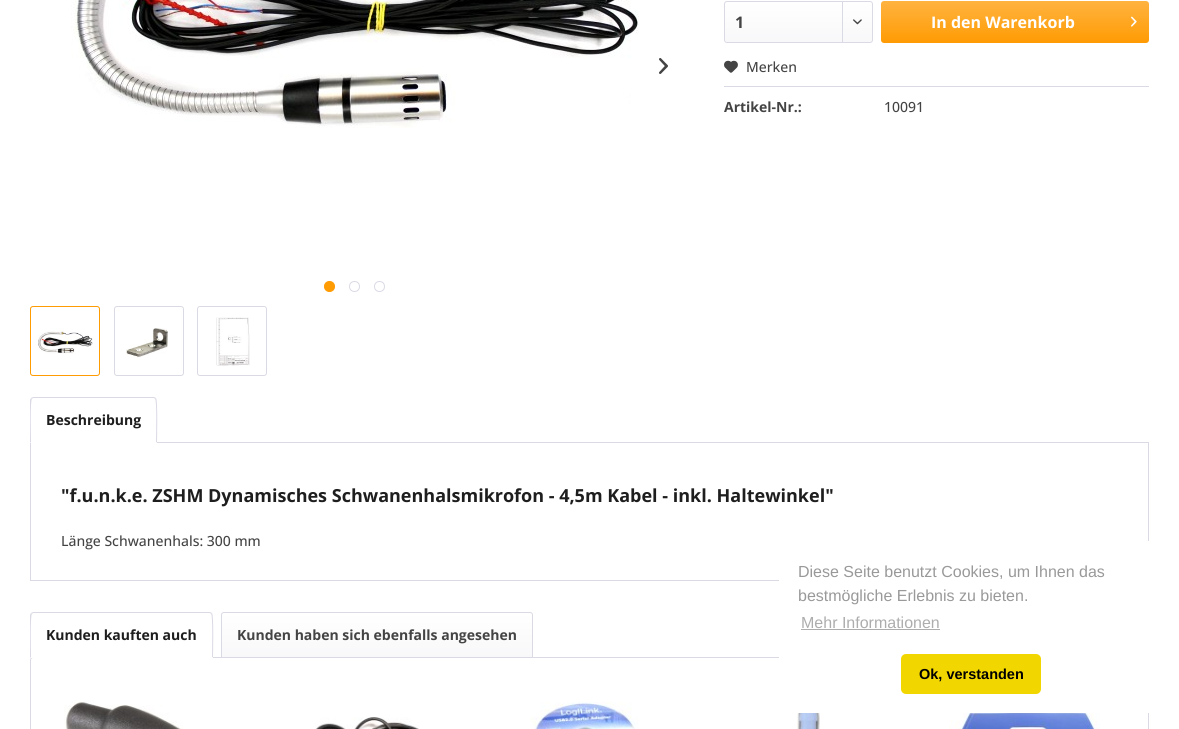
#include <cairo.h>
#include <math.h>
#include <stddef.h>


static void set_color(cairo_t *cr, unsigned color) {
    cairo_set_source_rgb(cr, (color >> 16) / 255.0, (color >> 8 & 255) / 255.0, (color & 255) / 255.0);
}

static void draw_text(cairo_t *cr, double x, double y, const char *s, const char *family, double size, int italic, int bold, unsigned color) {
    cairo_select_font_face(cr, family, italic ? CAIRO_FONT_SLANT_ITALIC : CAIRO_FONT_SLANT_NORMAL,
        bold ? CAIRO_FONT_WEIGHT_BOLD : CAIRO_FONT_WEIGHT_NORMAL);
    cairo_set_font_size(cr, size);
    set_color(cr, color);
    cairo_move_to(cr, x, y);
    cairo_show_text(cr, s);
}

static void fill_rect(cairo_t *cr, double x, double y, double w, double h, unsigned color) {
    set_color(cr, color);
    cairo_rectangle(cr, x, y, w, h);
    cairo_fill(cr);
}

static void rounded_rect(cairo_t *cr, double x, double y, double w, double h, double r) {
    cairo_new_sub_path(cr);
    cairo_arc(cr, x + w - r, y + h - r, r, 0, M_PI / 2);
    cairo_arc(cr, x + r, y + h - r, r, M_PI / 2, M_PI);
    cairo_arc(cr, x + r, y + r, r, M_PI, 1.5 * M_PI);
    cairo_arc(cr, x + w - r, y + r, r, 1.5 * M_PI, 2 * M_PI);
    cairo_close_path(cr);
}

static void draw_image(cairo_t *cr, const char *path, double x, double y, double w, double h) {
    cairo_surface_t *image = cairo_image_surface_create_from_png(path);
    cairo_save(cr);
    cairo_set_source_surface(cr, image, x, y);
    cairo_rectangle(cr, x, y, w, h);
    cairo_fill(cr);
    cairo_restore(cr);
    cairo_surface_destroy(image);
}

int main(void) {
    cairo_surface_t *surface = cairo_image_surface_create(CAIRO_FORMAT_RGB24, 1179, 729);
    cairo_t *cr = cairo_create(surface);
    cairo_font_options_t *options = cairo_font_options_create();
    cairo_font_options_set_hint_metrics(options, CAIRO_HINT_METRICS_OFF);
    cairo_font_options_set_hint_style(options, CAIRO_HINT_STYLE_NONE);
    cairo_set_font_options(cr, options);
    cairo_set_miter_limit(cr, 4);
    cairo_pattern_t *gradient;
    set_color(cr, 0xFFFFFF);
    cairo_paint(cr);
    draw_image(cr, "assets/img1.png", 71, 0, 568, 128);
    draw_image(cr, "assets/img2.png", 659, 58, 9, 16);
    set_color(cr, 0xFF9B03);
    cairo_arc(cr, 329.5, 286.5, 5, 0, 2 * M_PI);
    cairo_fill_preserve(cr);
    cairo_set_line_width(cr, 1);
    cairo_stroke(cr);
    cairo_arc(cr, 354.5, 286.5, 5, 0, 2 * M_PI);
    set_color(cr, 0xDADAE5);
    cairo_stroke(cr);
    cairo_arc(cr, 379.5, 286.5, 5, 0, 2 * M_PI);
    cairo_stroke(cr);
    rounded_rect(cr, 30.5, 306.5, 69, 69, 2.5);
    set_color(cr, 0xFF9B03);
    cairo_stroke(cr);
    draw_image(cr, "assets/img3.png", 38, 328, 55, 26);
    rounded_rect(cr, 114.5, 306.5, 69, 69, 2.5);
    set_color(cr, 0xDADAE5);
    cairo_stroke(cr);
    draw_image(cr, "assets/img4.png", 126, 328, 42, 30);
    rounded_rect(cr, 197.5, 306.5, 69, 69, 2.5);
    cairo_stroke(cr);
    draw_image(cr, "assets/img5.png", 216, 317, 34, 49);
    gradient = cairo_pattern_create_linear(799, 2, 799, 42);
    cairo_pattern_add_color_stop_rgba(gradient, 0, 1, 1, 1, 1);
    cairo_pattern_add_color_stop_rgba(gradient, 1, 0.973, 0.973, 0.98, 1);
    cairo_set_source(cr, gradient);
    cairo_pattern_destroy(gradient);
    rounded_rect(cr, 725, 2, 147, 40, 2);
    cairo_fill(cr);
    rounded_rect(cr, 724.5, 1.5, 148, 41, 2.5);
    set_color(cr, 0xDADAE5);
    cairo_stroke(cr);
    draw_text(cr, 735, 28, "1", "Open Sans", 16, 0, 1, 0x444444);
    fill_rect(cr, 842, 2, 1, 40, 0xDADAE5);
    draw_image(cr, "assets/img6.png", 853, 19, 9, 6);
    gradient = cairo_pattern_create_linear(1015, 1, 1015, 43);
    cairo_pattern_add_color_stop_rgba(gradient, 0, 1, 0.702, 0.251, 1);
    cairo_pattern_add_color_stop_rgba(gradient, 1, 1, 0.608, 0.012, 1);
    cairo_set_source(cr, gradient);
    cairo_pattern_destroy(gradient);
    rounded_rect(cr, 881, 1, 268, 42, 3);
    cairo_fill(cr);
    draw_text(cr, 931, 28, "In den Warenkorb", "Open Sans", 16, 0, 1, 0xFFFFFF);
    draw_image(cr, "assets/img7.png", 1131, 16, 6, 11);
    fill_rect(cr, 724, 86, 425, 1, 0xDADAE5);
    draw_image(cr, "assets/img8.png", 724, 60, 14, 13);
    draw_text(cr, 746, 72, "Merken", "Open Sans Medium", 14, 0, 0, 0x444444);
    draw_text(cr, 724, 112, "Artikel-Nr.:", "Open Sans", 14, 0, 1, 0x444444);
    draw_text(cr, 884, 112, "10091", "Open Sans Medium", 14, 0, 0, 0x444444);
    cairo_rectangle(cr, 30.5, 442.5, 1118, 138);
    set_color(cr, 0xDADAE5);
    cairo_stroke(cr);
    set_color(cr, 0xFFFFFF);
    cairo_new_path(cr);
    cairo_move_to(cr, 33, 397);
    cairo_line_to(cr, 154, 397);
    cairo_curve_to(cr, 155.5, 397, 157, 398.5, 157, 400);
    cairo_line_to(cr, 157, 443);
    cairo_line_to(cr, 30, 443);
    cairo_line_to(cr, 30, 400);
    cairo_curve_to(cr, 30, 398.5, 31.5, 397, 33, 397);
    cairo_close_path(cr);
    cairo_fill(cr);
    set_color(cr, 0xDADAE5);
    cairo_new_path(cr);
    cairo_move_to(cr, 33, 397);
    cairo_line_to(cr, 31, 398);
    cairo_line_to(cr, 32, 399);
    cairo_line_to(cr, 33, 398);
    cairo_line_to(cr, 154, 398);
    cairo_line_to(cr, 155, 399);
    cairo_line_to(cr, 156, 398);
    cairo_line_to(cr, 154, 397);
    cairo_close_path(cr);
    cairo_fill(cr);
    cairo_new_path(cr);
    cairo_move_to(cr, 157, 443);
    cairo_curve_to(cr, 157, 438, 158, 400, 156, 398);
    cairo_line_to(cr, 155, 399);
    cairo_curve_to(cr, 157, 400, 156, 437, 156, 442);
    cairo_close_path(cr);
    cairo_fill(cr);
    set_color(cr, 0xFFFFFF);
    cairo_new_path(cr);
    cairo_move_to(cr, 157, 443);
    cairo_line_to(cr, 156, 442);
    cairo_line_to(cr, 31, 442);
    cairo_line_to(cr, 30, 443);
    cairo_close_path(cr);
    cairo_fill(cr);
    set_color(cr, 0xDADAE5);
    cairo_new_path(cr);
    cairo_move_to(cr, 30, 443);
    cairo_line_to(cr, 31, 442);
    cairo_curve_to(cr, 31, 437, 30, 400, 32, 399);
    cairo_line_to(cr, 31, 398);
    cairo_line_to(cr, 30, 400);
    cairo_close_path(cr);
    cairo_fill(cr);
    draw_text(cr, 46, 425, "Beschreibung", "Open Sans", 14, 0, 1, 0x1E1E1E);
    draw_text(cr, 61, 502, "\"f.u.n.k.e. ZSHM Dynamisches Schwanenhalsmikrofon - 4,5m Kabel - inkl. Haltewinkel\"", "Open Sans", 18, 0, 1, 0x1E1E1E);
    draw_text(cr, 61, 546, "Länge Schwanenhals: 300 mm", "Open Sans Medium", 14, 0, 0, 0x444444);
    rounded_rect(cr, 30.5, 657.5, 1118, 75, 2.5);
    set_color(cr, 0xDADAE5);
    cairo_stroke(cr);
    set_color(cr, 0xFFFFFF);
    cairo_new_path(cr);
    cairo_move_to(cr, 33, 612);
    cairo_line_to(cr, 210, 612);
    cairo_curve_to(cr, 211.5, 612, 213, 613.5, 213, 615);
    cairo_line_to(cr, 213, 658);
    cairo_line_to(cr, 30, 658);
    cairo_line_to(cr, 30, 615);
    cairo_curve_to(cr, 30, 613.5, 31.5, 612, 33, 612);
    cairo_close_path(cr);
    cairo_fill(cr);
    set_color(cr, 0xDADAE5);
    cairo_new_path(cr);
    cairo_move_to(cr, 33, 612);
    cairo_line_to(cr, 31, 613);
    cairo_line_to(cr, 32, 614);
    cairo_line_to(cr, 33, 613);
    cairo_line_to(cr, 210, 613);
    cairo_line_to(cr, 211, 614);
    cairo_line_to(cr, 212, 613);
    cairo_line_to(cr, 210, 612);
    cairo_close_path(cr);
    cairo_fill(cr);
    cairo_new_path(cr);
    cairo_move_to(cr, 213, 658);
    cairo_curve_to(cr, 213, 653, 214, 615, 212, 613);
    cairo_line_to(cr, 211, 614);
    cairo_curve_to(cr, 213, 615, 212, 652, 212, 657);
    cairo_close_path(cr);
    cairo_fill(cr);
    set_color(cr, 0xFFFFFF);
    cairo_new_path(cr);
    cairo_move_to(cr, 213, 658);
    cairo_line_to(cr, 212, 657);
    cairo_line_to(cr, 31, 657);
    cairo_line_to(cr, 30, 658);
    cairo_close_path(cr);
    cairo_fill(cr);
    set_color(cr, 0xDADAE5);
    cairo_new_path(cr);
    cairo_move_to(cr, 30, 658);
    cairo_line_to(cr, 31, 657);
    cairo_curve_to(cr, 31, 652, 30, 615, 32, 614);
    cairo_line_to(cr, 31, 613);
    cairo_line_to(cr, 30, 615);
    cairo_close_path(cr);
    cairo_fill(cr);
    draw_text(cr, 46, 640, "Kunden kauften auch", "Open Sans", 14, 0, 1, 0x1E1E1E);
    gradient = cairo_pattern_create_linear(377, 613, 377, 657);
    cairo_pattern_add_color_stop_rgba(gradient, 0, 1, 1, 1, 1);
    cairo_pattern_add_color_stop_rgba(gradient, 1, 0.973, 0.973, 0.98, 1);
    cairo_set_source(cr, gradient);
    cairo_pattern_destroy(gradient);
    cairo_new_path(cr);
    cairo_move_to(cr, 224, 613);
    cairo_line_to(cr, 530, 613);
    cairo_curve_to(cr, 531, 613, 532, 614, 532, 615);
    cairo_line_to(cr, 532, 657);
    cairo_line_to(cr, 222, 657);
    cairo_line_to(cr, 222, 615);
    cairo_curve_to(cr, 222, 614, 223, 613, 224, 613);
    cairo_close_path(cr);
    cairo_fill(cr);
    cairo_new_path(cr);
    cairo_move_to(cr, 224, 612.5);
    cairo_line_to(cr, 530, 612.5);
    cairo_curve_to(cr, 531.5, 612.5, 532.5, 613.5, 532.5, 615);
    cairo_line_to(cr, 532.5, 657.5);
    cairo_line_to(cr, 221.5, 657.5);
    cairo_line_to(cr, 221.5, 615);
    cairo_curve_to(cr, 221.5, 613.5, 222.5, 612.5, 224, 612.5);
    cairo_close_path(cr);
    set_color(cr, 0xDADAE5);
    cairo_stroke(cr);
    draw_text(cr, 237, 640, "Kunden haben sich ebenfalls angesehen", "Open Sans", 14, 0, 1, 0x444444);
    draw_image(cr, "assets/img9.png", 64, 700, 119, 29);
    draw_image(cr, "assets/img10.png", 315, 717, 104, 12);
    draw_image(cr, "assets/img11.png", 530, 702, 109, 27);
    draw_image(cr, "assets/img12.png", 796, 713, 24, 16);
    draw_image(cr, "assets/img13.png", 949, 713, 151, 16);
    set_color(cr, 0xFFFFFF);
    rounded_rect(cr, 779, 541, 384, 172, 5);
    cairo_fill(cr);
    draw_text(cr, 798, 577, "Diese Seite benutzt Cookies, um Ihnen das", "Liberation Sans", 16, 0, 0, 0x999999);
    draw_text(cr, 798, 601, "bestmögliche Erlebnis zu bieten.", "Liberation Sans", 16, 0, 0, 0x999999);
    draw_text(cr, 801, 628, "Mehr Informationen", "Liberation Sans", 16, 0, 0, 0xADADAD);
    fill_rect(cr, 801, 629, 139, 1, 0xADADAD);
    set_color(cr, 0xF1D600);
    rounded_rect(cr, 901, 654, 140, 40, 5);
    cairo_fill(cr);
    draw_text(cr, 919, 679, "Ok, verstanden", "Liberation Sans", 14.5, 0, 1, 0x000000);
    cairo_surface_write_to_png(surface, "output.png");
    cairo_font_options_destroy(options);
    cairo_destroy(cr);
    cairo_surface_destroy(surface);
    return 0;
}
